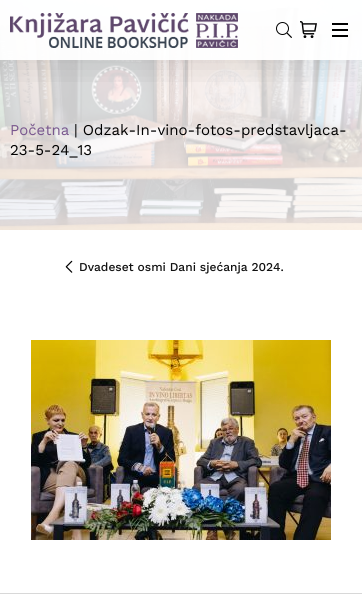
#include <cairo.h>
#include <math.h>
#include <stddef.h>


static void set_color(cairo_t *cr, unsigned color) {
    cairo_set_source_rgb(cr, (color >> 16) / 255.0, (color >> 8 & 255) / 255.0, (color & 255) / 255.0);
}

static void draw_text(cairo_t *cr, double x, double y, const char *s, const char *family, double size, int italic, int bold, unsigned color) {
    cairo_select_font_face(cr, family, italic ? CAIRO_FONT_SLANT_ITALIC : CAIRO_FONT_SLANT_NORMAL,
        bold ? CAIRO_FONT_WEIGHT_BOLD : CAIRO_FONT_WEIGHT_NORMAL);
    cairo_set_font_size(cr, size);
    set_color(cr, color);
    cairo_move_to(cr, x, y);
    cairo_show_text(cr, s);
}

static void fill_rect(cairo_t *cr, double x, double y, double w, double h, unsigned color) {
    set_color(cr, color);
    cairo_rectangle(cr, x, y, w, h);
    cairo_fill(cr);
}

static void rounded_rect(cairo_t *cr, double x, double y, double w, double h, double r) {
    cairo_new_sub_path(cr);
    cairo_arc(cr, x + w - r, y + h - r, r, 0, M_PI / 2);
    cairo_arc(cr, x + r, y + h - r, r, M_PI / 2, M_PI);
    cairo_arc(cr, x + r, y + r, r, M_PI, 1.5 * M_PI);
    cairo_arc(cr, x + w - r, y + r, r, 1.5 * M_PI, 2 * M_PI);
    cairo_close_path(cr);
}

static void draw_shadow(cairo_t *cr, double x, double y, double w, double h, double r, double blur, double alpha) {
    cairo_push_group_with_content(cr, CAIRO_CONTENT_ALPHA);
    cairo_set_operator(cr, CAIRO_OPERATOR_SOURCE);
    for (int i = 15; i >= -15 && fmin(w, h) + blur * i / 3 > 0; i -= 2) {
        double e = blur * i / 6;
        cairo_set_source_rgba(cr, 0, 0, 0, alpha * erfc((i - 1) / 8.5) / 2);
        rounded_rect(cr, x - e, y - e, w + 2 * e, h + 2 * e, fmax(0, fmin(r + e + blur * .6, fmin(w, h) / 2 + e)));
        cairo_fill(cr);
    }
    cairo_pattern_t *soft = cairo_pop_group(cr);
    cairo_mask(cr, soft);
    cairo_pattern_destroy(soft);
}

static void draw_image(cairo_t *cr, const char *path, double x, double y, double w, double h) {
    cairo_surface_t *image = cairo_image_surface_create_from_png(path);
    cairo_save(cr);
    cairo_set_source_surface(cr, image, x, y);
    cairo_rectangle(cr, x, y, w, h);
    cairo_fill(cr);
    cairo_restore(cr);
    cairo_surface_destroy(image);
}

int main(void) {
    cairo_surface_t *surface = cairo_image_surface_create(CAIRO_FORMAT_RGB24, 362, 614);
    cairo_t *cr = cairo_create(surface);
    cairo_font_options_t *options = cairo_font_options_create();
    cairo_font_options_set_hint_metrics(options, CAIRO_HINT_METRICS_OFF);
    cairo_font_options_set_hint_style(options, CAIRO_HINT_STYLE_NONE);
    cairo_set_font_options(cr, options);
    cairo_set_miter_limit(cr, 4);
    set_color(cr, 0xFFFFFF);
    cairo_paint(cr);
    draw_image(cr, "assets/img4.png", 0, 0, 362, 230);
    cairo_save(cr);
    cairo_rectangle(cr, 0, 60, 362, 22);
    cairo_clip(cr);
    set_color(cr, 0x000000);
    draw_shadow(cr, 0, 0, 362, 60, 0, 20, 0.15);
    cairo_restore(cr);
    cairo_set_source_rgba(cr, 1, 1, 1, 0.94);
    cairo_rectangle(cr, 0, 0, 362, 60);
    cairo_fill(cr);
    draw_image(cr, "assets/img1.png", 10, 13, 228, 35);
    draw_image(cr, "assets/img2.png", 276, 22, 16, 16);
    draw_image(cr, "assets/img3.png", 300, 21, 17, 17);
    fill_rect(cr, 332, 29, 16, 2, 0x000000);
    fill_rect(cr, 332, 23, 16, 2, 0x000000);
    fill_rect(cr, 332, 35, 16, 2, 0x000000);
    draw_text(cr, 10, 135, "Početna", "Work Sans", 15, 0, 0, 0x79578E);
    draw_text(cr, 74, 135, "| Odzak-In-vino-fotos-predstavljaca-", "Work Sans", 15, 0, 0, 0x000000);
    draw_text(cr, 10, 155, "23-5-24_13", "Work Sans", 15, 0, 0, 0x000000);
    draw_image(cr, "assets/img5.png", 65, 260, 8, 13);
    draw_text(cr, 79, 271, "Dvadeset osmi Dani sjećanja 2024.", "Work Sans Medium", 12, 0, 0, 0x111111);
    draw_image(cr, "assets/img6.png", 31, 340, 300, 200);
    fill_rect(cr, 0, 593, 362, 1, 0xD8D8D8);
    cairo_surface_write_to_png(surface, "output.png");
    cairo_font_options_destroy(options);
    cairo_destroy(cr);
    cairo_surface_destroy(surface);
    return 0;
}
